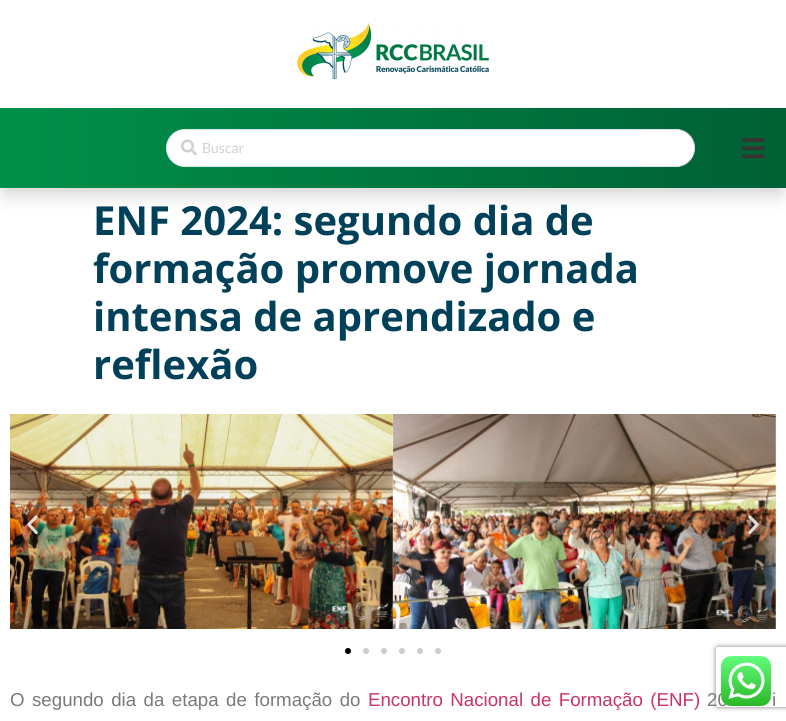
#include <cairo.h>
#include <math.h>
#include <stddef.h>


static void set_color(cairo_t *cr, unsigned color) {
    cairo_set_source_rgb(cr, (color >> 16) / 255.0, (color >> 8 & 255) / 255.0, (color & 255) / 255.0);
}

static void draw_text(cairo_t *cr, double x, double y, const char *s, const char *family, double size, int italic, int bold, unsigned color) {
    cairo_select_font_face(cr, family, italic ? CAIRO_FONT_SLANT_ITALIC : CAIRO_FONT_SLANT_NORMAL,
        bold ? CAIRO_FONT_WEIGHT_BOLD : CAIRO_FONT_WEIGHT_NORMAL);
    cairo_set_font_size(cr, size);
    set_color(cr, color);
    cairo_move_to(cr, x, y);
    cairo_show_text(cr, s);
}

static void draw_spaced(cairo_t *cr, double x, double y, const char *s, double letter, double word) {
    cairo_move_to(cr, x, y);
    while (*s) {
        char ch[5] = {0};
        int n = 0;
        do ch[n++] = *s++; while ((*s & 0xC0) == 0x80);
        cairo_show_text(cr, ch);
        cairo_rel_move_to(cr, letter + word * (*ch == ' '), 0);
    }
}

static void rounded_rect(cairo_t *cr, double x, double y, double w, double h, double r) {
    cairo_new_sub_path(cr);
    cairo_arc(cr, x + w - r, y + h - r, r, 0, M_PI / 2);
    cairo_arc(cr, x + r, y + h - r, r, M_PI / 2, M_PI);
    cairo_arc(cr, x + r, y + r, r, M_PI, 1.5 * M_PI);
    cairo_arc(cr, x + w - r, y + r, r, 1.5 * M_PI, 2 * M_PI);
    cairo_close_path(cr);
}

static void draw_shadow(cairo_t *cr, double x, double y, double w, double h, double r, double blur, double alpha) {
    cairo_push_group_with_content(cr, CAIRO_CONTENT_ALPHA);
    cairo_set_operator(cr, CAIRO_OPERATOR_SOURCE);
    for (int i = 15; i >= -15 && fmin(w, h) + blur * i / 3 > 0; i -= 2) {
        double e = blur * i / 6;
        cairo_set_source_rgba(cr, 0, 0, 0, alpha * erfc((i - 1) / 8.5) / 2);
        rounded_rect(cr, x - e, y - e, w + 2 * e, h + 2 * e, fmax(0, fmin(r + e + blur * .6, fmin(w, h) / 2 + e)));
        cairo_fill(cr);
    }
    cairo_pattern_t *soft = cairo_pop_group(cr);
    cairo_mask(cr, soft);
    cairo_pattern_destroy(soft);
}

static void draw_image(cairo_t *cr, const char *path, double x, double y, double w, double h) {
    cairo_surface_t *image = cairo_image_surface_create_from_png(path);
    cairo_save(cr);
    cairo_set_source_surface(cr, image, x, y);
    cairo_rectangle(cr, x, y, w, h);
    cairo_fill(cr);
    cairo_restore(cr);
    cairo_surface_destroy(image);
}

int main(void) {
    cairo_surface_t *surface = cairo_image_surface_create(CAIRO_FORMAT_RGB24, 786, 721);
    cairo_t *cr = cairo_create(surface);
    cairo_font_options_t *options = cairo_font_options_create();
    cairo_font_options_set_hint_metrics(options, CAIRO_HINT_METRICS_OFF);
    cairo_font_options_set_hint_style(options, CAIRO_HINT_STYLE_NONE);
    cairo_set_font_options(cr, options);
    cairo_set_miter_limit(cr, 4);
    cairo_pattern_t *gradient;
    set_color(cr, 0xFFFFFF);
    cairo_paint(cr);
    draw_image(cr, "assets/img1.png", 297, 22, 192, 57);
    set_color(cr, 0x000000);
    draw_shadow(cr, 5, 123, 776, 70, 0, 10, 0.2);
    gradient = cairo_pattern_create_linear(786, 148, 0, 148);
    cairo_pattern_add_color_stop_rgba(gradient, 0, 0, 0.376, 0.212, 1);
    cairo_pattern_add_color_stop_rgba(gradient, 1, 0, 0.565, 0.286, 1);
    cairo_set_source(cr, gradient);
    cairo_pattern_destroy(gradient);
    cairo_rectangle(cr, 0, 108, 786, 80);
    cairo_fill(cr);
    set_color(cr, 0xFFFFFF);
    rounded_rect(cr, 166.5, 129.5, 528, 37, 18.5);
    cairo_fill_preserve(cr);
    set_color(cr, 0xE1E5EB);
    cairo_set_line_width(cr, 1);
    cairo_stroke(cr);
    draw_image(cr, "assets/img2.png", 181, 139, 16, 17);
    draw_text(cr, 202, 153, "Buscar", "Lato", 14, 0, 0, 0xD0D0D0);
    draw_image(cr, "assets/img3.png", 742, 138, 23, 21);
    draw_text(cr, 93, 235, "ENF 2024: segundo dia de", "Open Sans", 40, 0, 1, 0x004058);
    draw_text(cr, 93, 283, "formação promove jornada", "Open Sans", 40, 0, 1, 0x004058);
    draw_text(cr, 93, 331, "intensa de aprendizado e", "Open Sans", 40, 0, 1, 0x004058);
    draw_text(cr, 93, 379, "reflexão", "Open Sans", 40, 0, 1, 0x004058);
    draw_image(cr, "assets/img4.png", 10, 414, 383, 215);
    draw_image(cr, "assets/img5.png", 393, 414, 383, 215);
    draw_image(cr, "assets/img6.png", 27, 515, 11, 20);
    draw_image(cr, "assets/img7.png", 748, 515, 11, 20);
    set_color(cr, 0x000000);
    cairo_arc(cr, 348, 651, 3, 0, 2 * M_PI);
    cairo_fill(cr);
    set_color(cr, 0xCCCCCC);
    cairo_arc(cr, 366, 651, 3, 0, 2 * M_PI);
    cairo_fill(cr);
    cairo_arc(cr, 384, 651, 3, 0, 2 * M_PI);
    cairo_fill(cr);
    cairo_arc(cr, 402, 651, 3, 0, 2 * M_PI);
    cairo_fill(cr);
    cairo_arc(cr, 420, 651, 3, 0, 2 * M_PI);
    cairo_fill(cr);
    cairo_arc(cr, 438, 651, 3, 0, 2 * M_PI);
    cairo_fill(cr);
    cairo_select_font_face(cr, "Liberation Sans", CAIRO_FONT_SLANT_NORMAL, CAIRO_FONT_WEIGHT_NORMAL);
    cairo_set_font_size(cr, 18.7);
    set_color(cr, 0x7A7A7A);
    draw_spaced(cr, 10, 706, "O segundo dia da etapa de formação do", 0, 2.25);
    set_color(cr, 0xCC3366);
    draw_spaced(cr, 368, 706, "Encontro Nacional de Formação (ENF)", 0, 2.25);
    set_color(cr, 0x7A7A7A);
    draw_spaced(cr, 707, 706, "20", 0, 2.25);
    draw_spaced(cr, 772, 706, "i", 0, 2.25);
    cairo_save(cr);
    cairo_set_fill_rule(cr, CAIRO_FILL_RULE_EVEN_ODD);
    cairo_new_path(cr);
    cairo_move_to(cr, 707, 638);
    cairo_line_to(cr, 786, 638);
    cairo_line_to(cr, 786, 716);
    cairo_line_to(cr, 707, 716);
    cairo_close_path(cr);
    cairo_move_to(cr, 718, 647);
    cairo_line_to(cr, 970, 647);
    cairo_curve_to(cr, 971, 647, 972, 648, 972, 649);
    cairo_line_to(cr, 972, 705);
    cairo_curve_to(cr, 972, 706, 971, 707, 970, 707);
    cairo_line_to(cr, 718, 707);
    cairo_curve_to(cr, 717, 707, 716, 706, 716, 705);
    cairo_line_to(cr, 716, 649);
    cairo_curve_to(cr, 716, 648, 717, 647, 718, 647);
    cairo_close_path(cr);
    cairo_clip(cr);
    set_color(cr, 0x808080);
    draw_shadow(cr, 716, 647, 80, 60, 2, 2.5, 1);
    cairo_restore(cr);
    draw_image(cr, "assets/img8.png", 721, 656, 50, 50);
    cairo_surface_write_to_png(surface, "output.png");
    cairo_font_options_destroy(options);
    cairo_destroy(cr);
    cairo_surface_destroy(surface);
    return 0;
}
